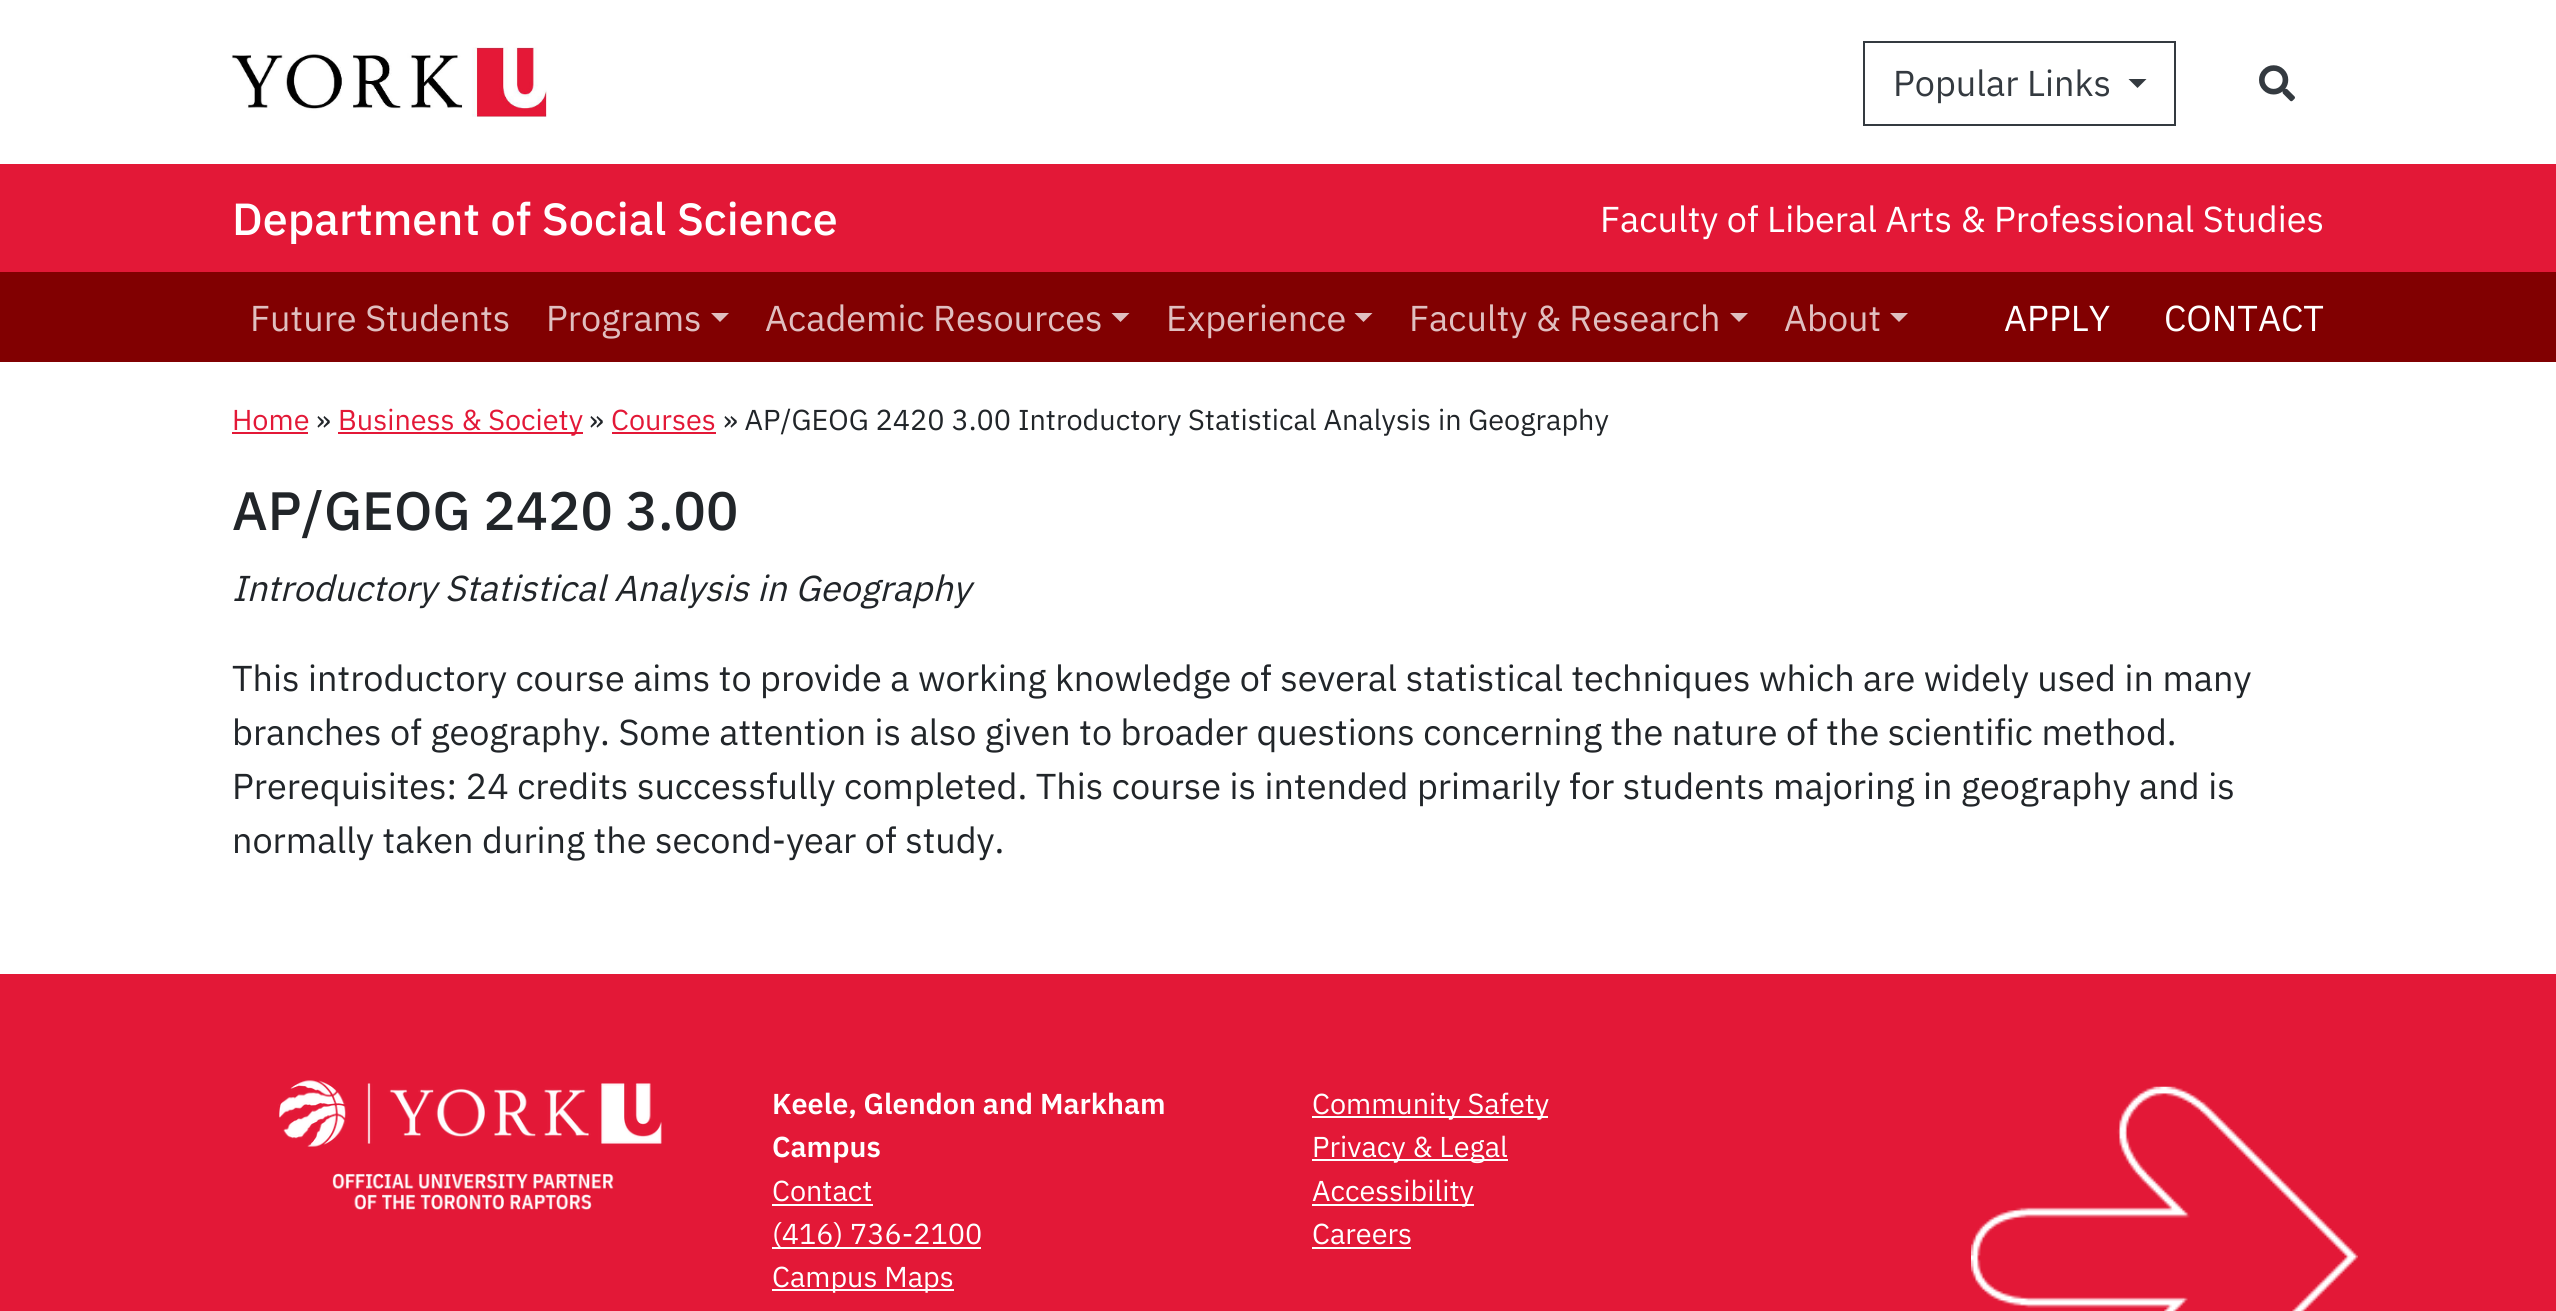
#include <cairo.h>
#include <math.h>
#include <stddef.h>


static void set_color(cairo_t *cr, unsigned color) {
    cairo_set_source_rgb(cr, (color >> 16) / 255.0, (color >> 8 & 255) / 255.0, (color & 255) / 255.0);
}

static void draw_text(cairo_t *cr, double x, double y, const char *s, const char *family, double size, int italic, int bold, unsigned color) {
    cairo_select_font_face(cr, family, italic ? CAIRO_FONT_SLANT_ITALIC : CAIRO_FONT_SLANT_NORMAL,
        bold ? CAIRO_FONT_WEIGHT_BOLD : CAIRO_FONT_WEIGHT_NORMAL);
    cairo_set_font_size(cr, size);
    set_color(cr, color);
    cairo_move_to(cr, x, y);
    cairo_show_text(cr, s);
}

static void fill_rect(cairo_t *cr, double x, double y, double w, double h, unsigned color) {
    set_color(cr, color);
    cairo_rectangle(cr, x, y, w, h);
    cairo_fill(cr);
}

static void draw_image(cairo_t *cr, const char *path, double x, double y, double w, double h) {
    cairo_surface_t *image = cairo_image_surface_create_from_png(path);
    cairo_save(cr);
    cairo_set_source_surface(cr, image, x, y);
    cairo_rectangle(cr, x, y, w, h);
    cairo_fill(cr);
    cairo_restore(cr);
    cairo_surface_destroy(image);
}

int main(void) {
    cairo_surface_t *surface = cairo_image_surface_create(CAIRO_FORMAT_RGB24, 2556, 1311);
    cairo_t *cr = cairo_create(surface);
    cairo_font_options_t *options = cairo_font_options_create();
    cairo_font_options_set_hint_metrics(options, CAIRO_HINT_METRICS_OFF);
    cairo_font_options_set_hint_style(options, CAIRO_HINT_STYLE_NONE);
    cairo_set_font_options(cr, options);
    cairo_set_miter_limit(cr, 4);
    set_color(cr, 0xFFFFFF);
    cairo_paint(cr);
    draw_image(cr, "assets/img1.png", 231, 47, 316, 70);
    cairo_rectangle(cr, 1864, 42, 311, 83);
    set_color(cr, 0x343A40);
    cairo_stroke(cr);
    draw_text(cr, 1893, 96, "Popular Links", "IBM Plex Sans", 36, 0, 0, 0x343A40);
    cairo_new_path(cr);
    cairo_move_to(cr, 2128.5, 79);
    cairo_line_to(cr, 2146.5, 79);
    cairo_line_to(cr, 2137.5, 88);
    cairo_close_path(cr);
    cairo_fill(cr);
    draw_image(cr, "assets/img2.png", 2259, 65, 36, 37);
    fill_rect(cr, 0, 164, 2556, 108, 0xE31837);
    draw_text(cr, 232, 235, "Department of Social Science", "IBM Plex Sans Medium", 45, 0, 0, 0xFFFFFF);
    draw_text(cr, 1600, 232, "Faculty of Liberal Arts & Professional Studies", "IBM Plex Sans", 36, 0, 0, 0xFFFFFF);
    fill_rect(cr, 0, 272, 2556, 90, 0x810001);
    draw_text(cr, 250, 331, "Future Students", "IBM Plex Sans", 36, 0, 0, 0xE0BFC0);
    draw_text(cr, 546, 331, "Programs", "IBM Plex Sans", 36, 0, 0, 0xE0BFC0);
    cairo_new_path(cr);
    cairo_move_to(cr, 711, 313);
    cairo_line_to(cr, 729, 313);
    cairo_line_to(cr, 720, 322);
    cairo_close_path(cr);
    cairo_fill(cr);
    draw_text(cr, 765, 331, "Academic Resources", "IBM Plex Sans", 36, 0, 0, 0xE0BFC0);
    cairo_new_path(cr);
    cairo_move_to(cr, 1111.5, 313);
    cairo_line_to(cr, 1129.5, 313);
    cairo_line_to(cr, 1120.5, 322);
    cairo_close_path(cr);
    cairo_fill(cr);
    draw_text(cr, 1166, 331, "Experience", "IBM Plex Sans", 36, 0, 0, 0xE0BFC0);
    cairo_new_path(cr);
    cairo_move_to(cr, 1354.5, 313);
    cairo_line_to(cr, 1372.5, 313);
    cairo_line_to(cr, 1363.5, 322);
    cairo_close_path(cr);
    cairo_fill(cr);
    draw_text(cr, 1409, 331, "Faculty & Research", "IBM Plex Sans", 36, 0, 0, 0xE0BFC0);
    cairo_new_path(cr);
    cairo_move_to(cr, 1730, 313);
    cairo_line_to(cr, 1748, 313);
    cairo_line_to(cr, 1739, 322);
    cairo_close_path(cr);
    cairo_fill(cr);
    draw_text(cr, 1784, 331, "About", "IBM Plex Sans", 36, 0, 0, 0xE0BFC0);
    cairo_new_path(cr);
    cairo_move_to(cr, 1890, 313);
    cairo_line_to(cr, 1908, 313);
    cairo_line_to(cr, 1899, 322);
    cairo_close_path(cr);
    cairo_fill(cr);
    draw_text(cr, 2004, 331, "APPLY", "IBM Plex Sans", 36, 0, 0, 0xFFFFFF);
    draw_text(cr, 2164, 331, "CONTACT", "IBM Plex Sans", 36, 0, 0, 0xFFFFFF);
    draw_text(cr, 232, 430, "Home", "IBM Plex Sans", 28.8, 0, 0, 0xE31837);
    fill_rect(cr, 232, 432, 76, 2, 0xE31837);
    draw_text(cr, 316, 430, "»", "IBM Plex Sans", 28.8, 0, 0, 0x212529);
    fill_rect(cr, 338, 432, 245, 2, 0xE31837);
    draw_text(cr, 338, 430, "Business & Society", "IBM Plex Sans", 28.8, 0, 0, 0xE31837);
    draw_text(cr, 589, 430, "»", "IBM Plex Sans", 28.8, 0, 0, 0x212529);
    draw_text(cr, 611, 430, "Courses", "IBM Plex Sans", 28.8, 0, 0, 0xE31837);
    fill_rect(cr, 612, 432, 104, 2, 0xE31837);
    draw_text(cr, 723, 430, "» AP/GEOG 2420 3.00 Introductory Statistical Analysis in Geography", "IBM Plex Sans", 28.8, 0, 0, 0x212529);
    draw_text(cr, 232, 530, "AP/GEOG 2420 3.00", "IBM Plex Sans Medium", 54, 0, 0, 0x212529);
    draw_text(cr, 232, 601, "Introductory Statistical Analysis in Geography", "IBM Plex Sans", 36, 1, 0, 0x212529);
    draw_text(cr, 232, 691, "This introductory course aims to provide a working knowledge of several statistical techniques which are widely used in many", "IBM Plex Sans", 36, 0, 0, 0x212529);
    draw_text(cr, 232, 745, "branches of geography. Some attention is also given to broader questions concerning the nature of the scientific method.", "IBM Plex Sans", 36, 0, 0, 0x212529);
    draw_text(cr, 232, 799, "Prerequisites: 24 credits successfully completed. This course is intended primarily for students majoring in geography and is", "IBM Plex Sans", 36, 0, 0, 0x212529);
    draw_text(cr, 232, 853, "normally taken during the second-year of study.", "IBM Plex Sans", 36, 0, 0, 0x212529);
    fill_rect(cr, 0, 974, 2556, 337, 0xE31837);
    draw_image(cr, "assets/img3.png", 1971, 1086, 387, 225);
    draw_image(cr, "assets/img4.png", 278, 1080, 384, 130);
    draw_text(cr, 772, 1114, "Keele, Glendon and Markham", "IBM Plex Sans SemiBold", 28.8, 0, 0, 0xFFFFFF);
    draw_text(cr, 772, 1157, "Campus", "IBM Plex Sans SemiBold", 28.8, 0, 0, 0xFFFFFF);
    draw_text(cr, 772, 1201, "Contact", "IBM Plex Sans", 28.8, 0, 0, 0xFFFFFF);
    fill_rect(cr, 772, 1204, 101, 2, 0xFFFFFF);
    fill_rect(cr, 772, 1247, 209, 2, 0xFFFFFF);
    draw_text(cr, 772, 1244, "(416) 736-2100", "IBM Plex Sans", 28.8, 0, 0, 0xFFFFFF);
    fill_rect(cr, 772, 1289, 182, 2, 0xFFFFFF);
    draw_text(cr, 772, 1287, "Campus Maps", "IBM Plex Sans", 28.8, 0, 0, 0xFFFFFF);
    fill_rect(cr, 1312, 1116, 236, 2, 0xFFFFFF);
    draw_text(cr, 1312, 1114, "Community Safety", "IBM Plex Sans", 28.8, 0, 0, 0xFFFFFF);
    fill_rect(cr, 1312, 1159, 196, 2, 0xFFFFFF);
    draw_text(cr, 1312, 1157, "Privacy & Legal", "IBM Plex Sans", 28.8, 0, 0, 0xFFFFFF);
    fill_rect(cr, 1312, 1204, 162, 2, 0xFFFFFF);
    draw_text(cr, 1312, 1201, "Accessibility", "IBM Plex Sans", 28.8, 0, 0, 0xFFFFFF);
    draw_text(cr, 1312, 1244, "Careers", "IBM Plex Sans", 28.8, 0, 0, 0xFFFFFF);
    fill_rect(cr, 1312, 1247, 99, 2, 0xFFFFFF);
    cairo_surface_write_to_png(surface, "output.png");
    cairo_font_options_destroy(options);
    cairo_destroy(cr);
    cairo_surface_destroy(surface);
    return 0;
}
